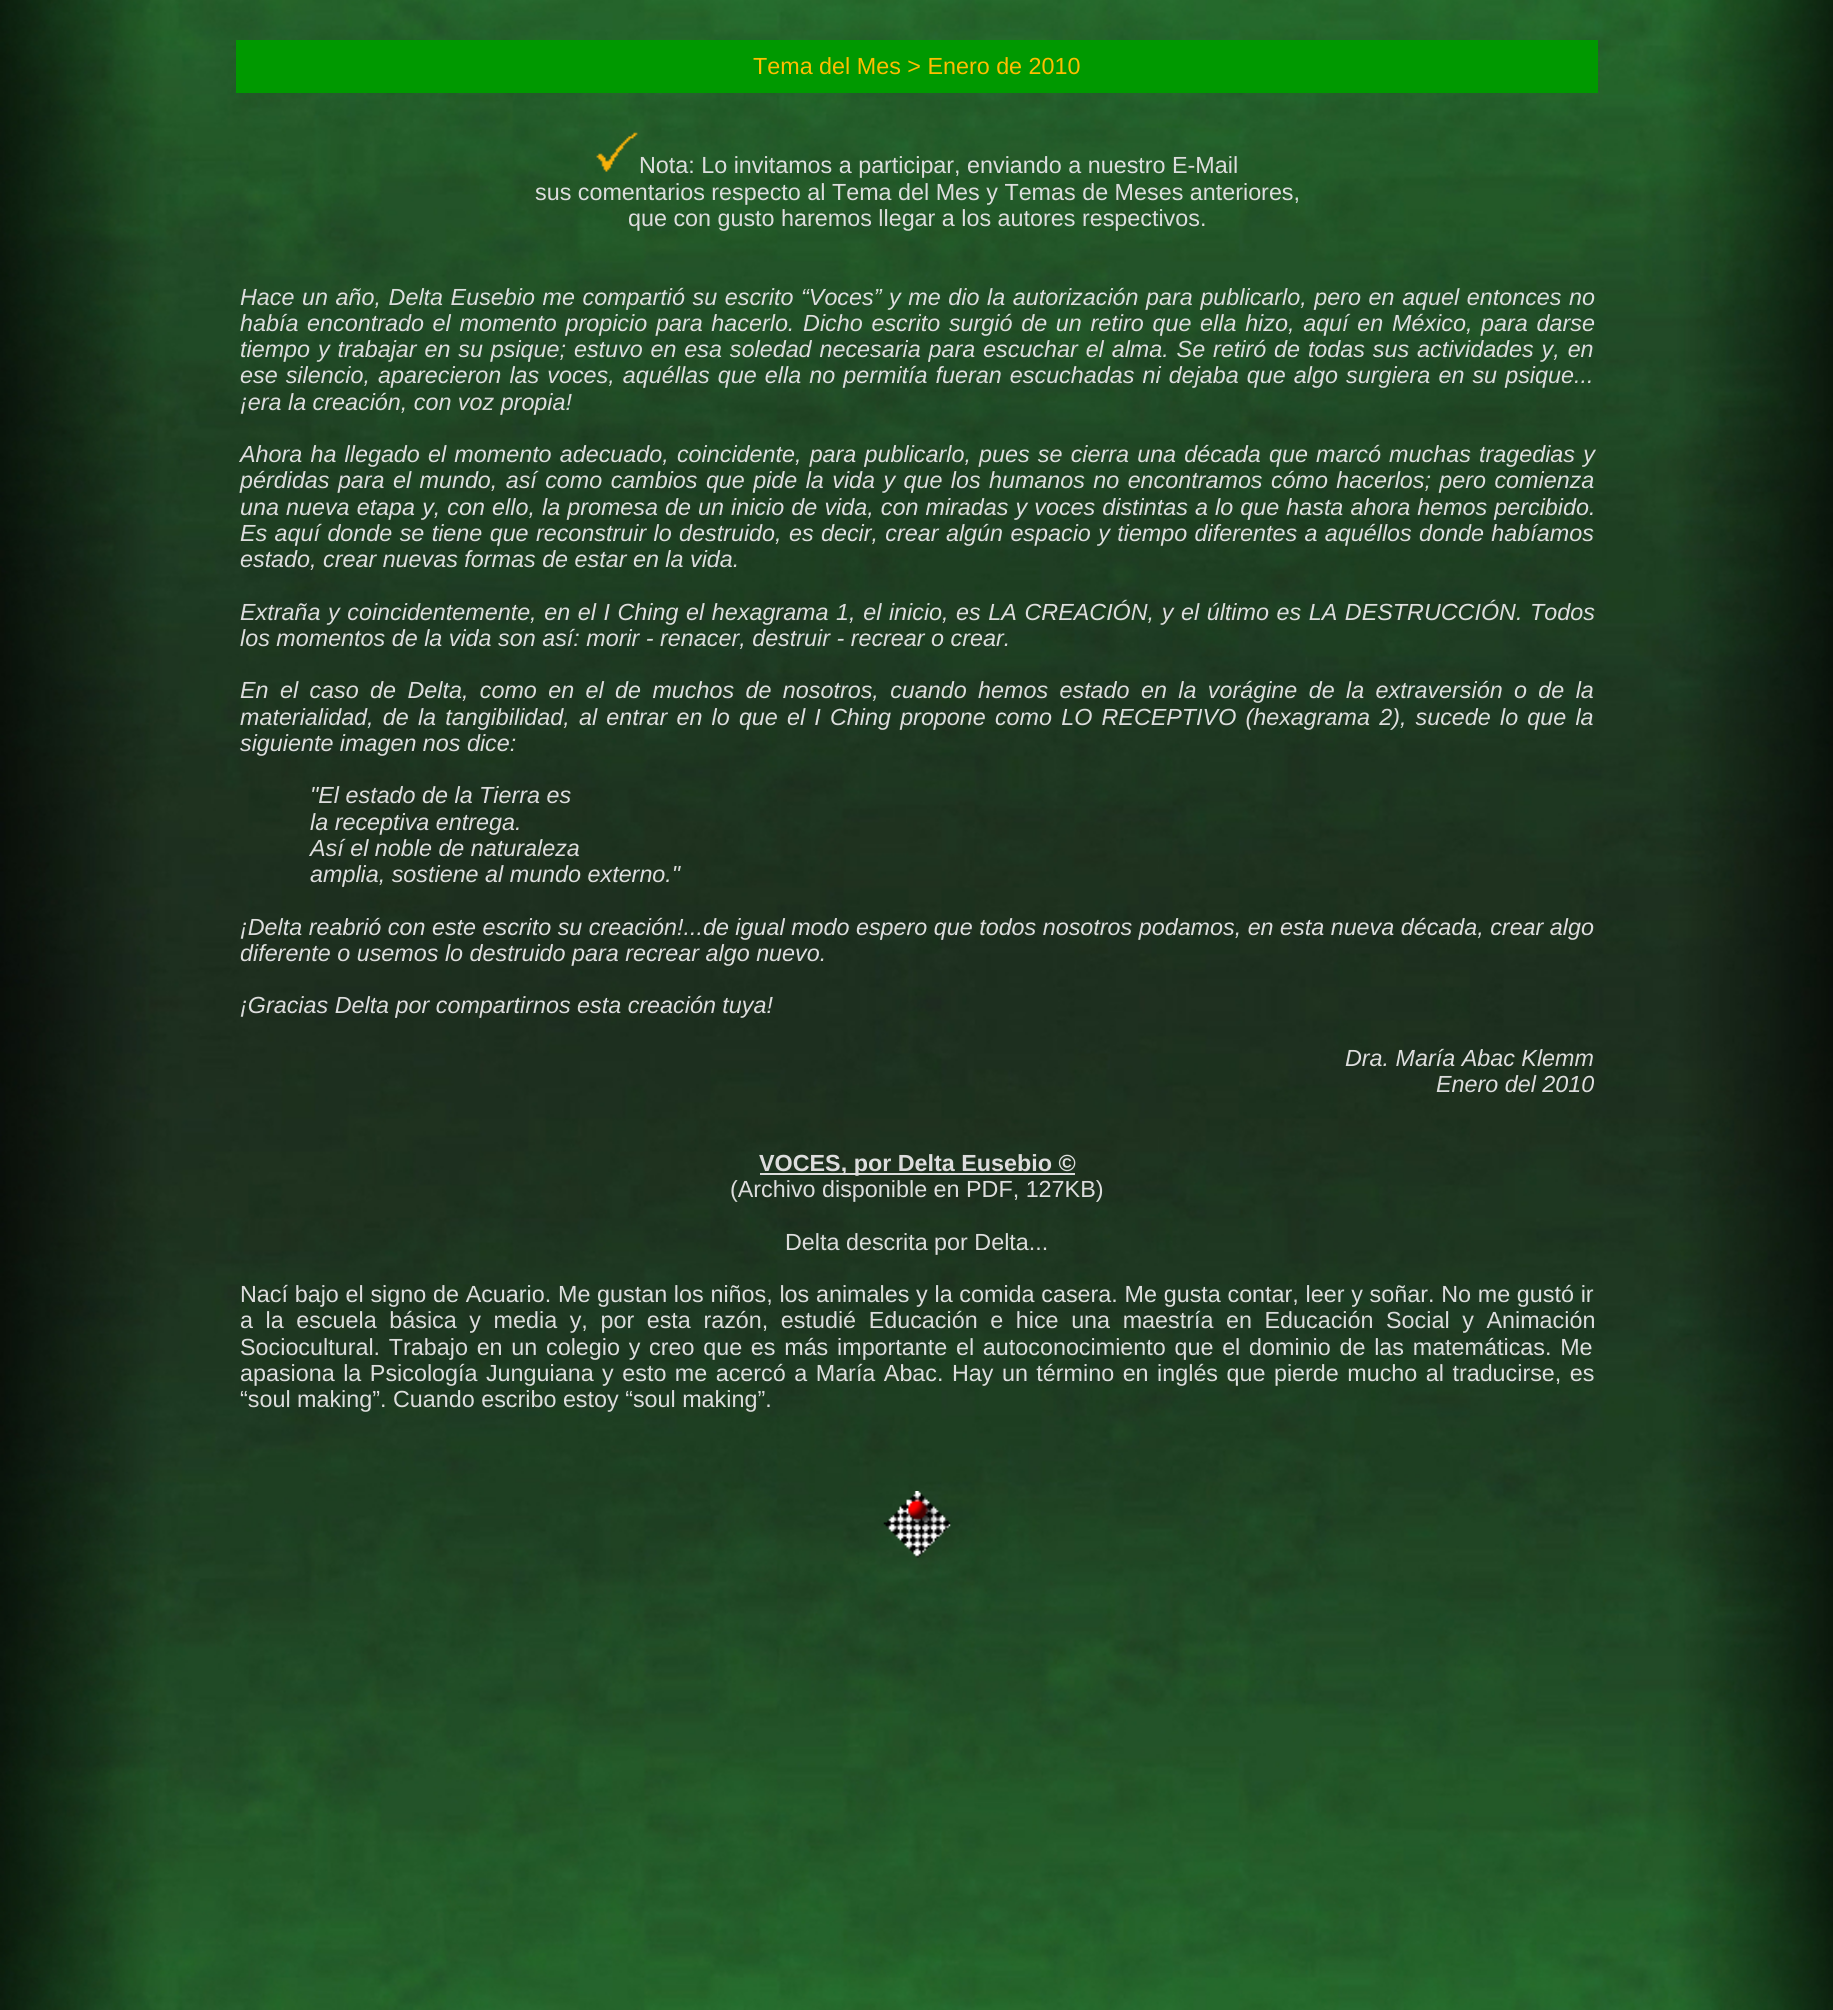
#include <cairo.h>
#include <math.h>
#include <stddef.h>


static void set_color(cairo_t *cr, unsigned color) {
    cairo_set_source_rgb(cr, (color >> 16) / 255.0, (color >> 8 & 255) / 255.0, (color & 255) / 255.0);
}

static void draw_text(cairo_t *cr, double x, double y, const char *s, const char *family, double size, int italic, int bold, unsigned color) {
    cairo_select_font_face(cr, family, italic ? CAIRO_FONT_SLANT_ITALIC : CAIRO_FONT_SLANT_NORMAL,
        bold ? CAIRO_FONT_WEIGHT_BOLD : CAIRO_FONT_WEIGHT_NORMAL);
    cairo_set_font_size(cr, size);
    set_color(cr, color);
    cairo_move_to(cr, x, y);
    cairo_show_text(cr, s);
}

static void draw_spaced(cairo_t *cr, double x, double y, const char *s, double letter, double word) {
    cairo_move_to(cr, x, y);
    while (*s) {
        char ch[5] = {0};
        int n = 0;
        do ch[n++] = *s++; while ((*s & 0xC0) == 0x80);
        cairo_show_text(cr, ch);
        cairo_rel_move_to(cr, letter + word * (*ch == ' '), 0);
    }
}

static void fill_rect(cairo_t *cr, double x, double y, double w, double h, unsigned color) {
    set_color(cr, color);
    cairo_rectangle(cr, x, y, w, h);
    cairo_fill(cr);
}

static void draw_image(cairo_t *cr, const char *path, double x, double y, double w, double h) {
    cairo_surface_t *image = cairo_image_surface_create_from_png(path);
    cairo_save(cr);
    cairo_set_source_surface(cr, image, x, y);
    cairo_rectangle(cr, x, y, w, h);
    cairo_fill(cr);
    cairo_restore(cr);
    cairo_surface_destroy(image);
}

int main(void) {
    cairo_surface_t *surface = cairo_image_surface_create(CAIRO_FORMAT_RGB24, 1833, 2010);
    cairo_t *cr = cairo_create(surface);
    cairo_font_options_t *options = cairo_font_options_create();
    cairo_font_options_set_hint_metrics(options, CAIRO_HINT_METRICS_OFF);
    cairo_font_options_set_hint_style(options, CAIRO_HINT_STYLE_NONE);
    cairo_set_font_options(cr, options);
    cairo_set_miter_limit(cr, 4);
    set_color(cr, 0xFFFFFF);
    cairo_paint(cr);
    draw_image(cr, "assets/img1.png", 0, 0, 1833, 2010);
    fill_rect(cr, 236, 40, 1362, 53, 0x009900);
    draw_text(cr, 753, 74, "Tema del Mes > Enero de 2010", "Liberation Sans", 23.33, 0, 0, 0xFFBE00);
    draw_image(cr, "assets/img2.png", 596, 132, 42, 40);
    draw_text(cr, 639, 173, "Nota: Lo invitamos a participar, enviando a nuestro E-Mail", "Liberation Sans", 23.33, 0, 0, 0xDDDDDD);
    draw_text(cr, 535, 200, "sus comentarios respecto al Tema del Mes y Temas de Meses anteriores,", "Liberation Sans", 23.33, 0, 0, 0xDDDDDD);
    draw_text(cr, 628, 226, "que con gusto haremos llegar a los autores respectivos.", "Liberation Sans", 23.33, 0, 0, 0xDDDDDD);
    cairo_select_font_face(cr, "Liberation Sans", CAIRO_FONT_SLANT_ITALIC, CAIRO_FONT_WEIGHT_NORMAL);
    draw_spaced(cr, 240, 305, "Hace un año, Delta Eusebio me compartió su escrito “Voces” y me dio la autorización para publicarlo, pero en aquel entonces no", 0, 1.1);
    draw_spaced(cr, 240, 331, "había encontrado el momento propicio para hacerlo. Dicho escrito surgió de un retiro que ella hizo, aquí en México, para darse", 0, 2.25);
    draw_spaced(cr, 240, 357, "tiempo y trabajar en su psique; estuvo en esa soledad necesaria para escuchar el alma. Se retiró de todas sus actividades y, en", 0, 1.4);
    draw_spaced(cr, 240, 383, "ese silencio, aparecieron las voces, aquéllas que ella no permitía fueran escuchadas ni dejaba que algo surgiera en su psique...", 0, 1.6);
    draw_text(cr, 240, 410, "¡era la creación, con voz propia!", "Liberation Sans", 23.33, 1, 0, 0xDDDDDD);
    draw_spaced(cr, 240, 462, "Ahora ha llegado el momento adecuado, coincidente, para publicarlo, pues se cierra una década que marcó muchas tragedias y", 0, 1.7);
    draw_spaced(cr, 240, 488, "pérdidas para el mundo, así como cambios que pide la vida y que los humanos no encontramos cómo hacerlos; pero comienza", 0, 1.9);
    draw_spaced(cr, 240, 515, "una nueva etapa y, con ello, la promesa de un inicio de vida, con miradas y voces distintas a lo que hasta ahora hemos percibido.", 0, 0.6);
    draw_spaced(cr, 240, 541, "Es aquí donde se tiene que reconstruir lo destruido, es decir, crear algún espacio y tiempo diferentes a aquéllos donde habíamos", 0, 0.9);
    draw_text(cr, 240, 567, "estado, crear nuevas formas de estar en la vida.", "Liberation Sans", 23.33, 1, 0, 0xDDDDDD);
    draw_spaced(cr, 240, 620, "Extraña y coincidentemente, en el I Ching el hexagrama 1, el inicio, es LA CREACIÓN, y el último es LA DESTRUCCIÓN. Todos", 0, 1.1);
    draw_text(cr, 240, 646, "los momentos de la vida son así: morir - renacer, destruir - recrear o crear.", "Liberation Sans", 23.33, 1, 0, 0xDDDDDD);
    draw_spaced(cr, 240, 698, "En el caso de Delta, como en el de muchos de nosotros, cuando hemos estado en la vorágine de la extraversión o de la", 0, 4.9);
    draw_spaced(cr, 240, 725, "materialidad, de la tangibilidad, al entrar en lo que el I Ching propone como LO RECEPTIVO (hexagrama 2), sucede lo que la", 0, 2.7);
    draw_text(cr, 240, 751, "siguiente imagen nos dice:", "Liberation Sans", 23.33, 1, 0, 0xDDDDDD);
    draw_text(cr, 310, 803, "\"El estado de la Tierra es", "Liberation Sans", 23.33, 1, 0, 0xDDDDDD);
    draw_text(cr, 310, 830, "la receptiva entrega.", "Liberation Sans", 23.33, 1, 0, 0xDDDDDD);
    draw_text(cr, 310, 856, "Así el noble de naturaleza", "Liberation Sans", 23.33, 1, 0, 0xDDDDDD);
    draw_text(cr, 310, 882, "amplia, sostiene al mundo externo.\"", "Liberation Sans", 23.33, 1, 0, 0xDDDDDD);
    draw_text(cr, 240, 935, "¡Delta reabrió con este escrito su creación!...de igual modo espero que todos nosotros podamos, en esta nueva década, crear algo", "Liberation Sans", 23.33, 1, 0, 0xDDDDDD);
    draw_text(cr, 240, 961, "diferente o usemos lo destruido para recrear algo nuevo.", "Liberation Sans", 23.33, 1, 0, 0xDDDDDD);
    draw_text(cr, 240, 1013, "¡Gracias Delta por compartirnos esta creación tuya!", "Liberation Sans", 23.33, 1, 0, 0xDDDDDD);
    draw_text(cr, 1345, 1066, "Dra. María Abac Klemm", "Liberation Sans", 23.33, 1, 0, 0xDDDDDD);
    draw_text(cr, 1436, 1092, "Enero del 2010", "Liberation Sans", 23.33, 1, 0, 0xDDDDDD);
    fill_rect(cr, 760, 1173, 315, 2, 0xDDDDDD);
    draw_text(cr, 759, 1171, "VOCES, por Delta Eusebio ©", "Liberation Sans", 23.33, 0, 1, 0xDDDDDD);
    draw_text(cr, 730, 1197, "(Archivo disponible en PDF, 127KB)", "Liberation Sans", 23.33, 0, 0, 0xDDDDDD);
    draw_text(cr, 785, 1250, "Delta descrita por Delta...", "Liberation Sans", 23.33, 0, 0, 0xDDDDDD);
    draw_spaced(cr, 240, 1302, "Nací bajo el signo de Acuario. Me gustan los niños, los animales y la comida casera. Me gusta contar, leer y soñar. No me gustó ir", 0, 0.25);
    draw_spaced(cr, 240, 1328, "a la escuela básica y media y, por esta razón, estudié Educación e hice una maestría en Educación Social y Animación", 0, 6.1);
    draw_spaced(cr, 240, 1355, "Sociocultural. Trabajo en un colegio y creo que es más importante el autoconocimiento que el dominio de las matemáticas. Me", 0, 2.25);
    draw_spaced(cr, 240, 1381, "apasiona la Psicología Junguiana y esto me acercó a María Abac. Hay un término en inglés que pierde mucho al traducirse, es", 0, 2);
    draw_text(cr, 240, 1407, "“soul making”. Cuando escribo estoy “soul making”.", "Liberation Sans", 23.33, 0, 0, 0xDDDDDD);
    draw_image(cr, "assets/img3.png", 883, 1491, 68, 67);
    cairo_surface_write_to_png(surface, "output.png");
    cairo_font_options_destroy(options);
    cairo_destroy(cr);
    cairo_surface_destroy(surface);
    return 0;
}
